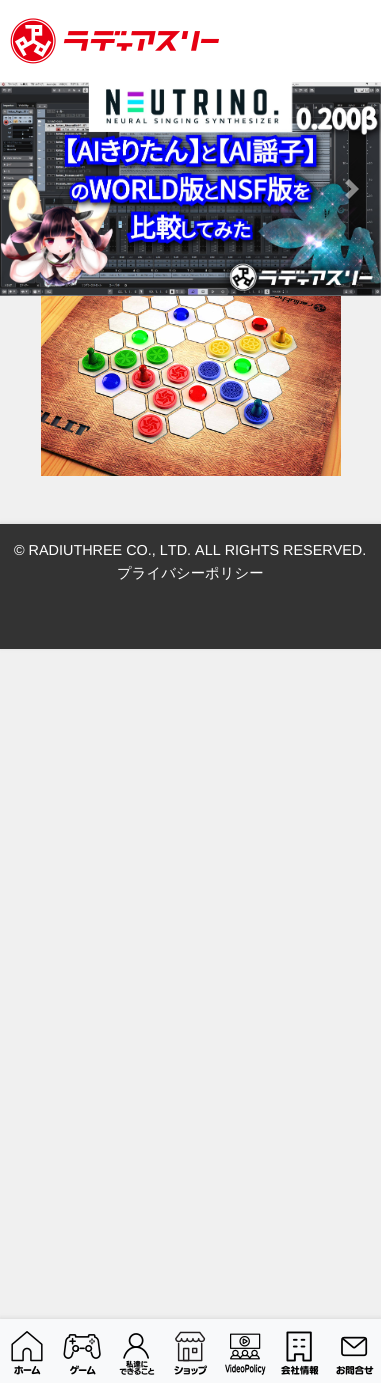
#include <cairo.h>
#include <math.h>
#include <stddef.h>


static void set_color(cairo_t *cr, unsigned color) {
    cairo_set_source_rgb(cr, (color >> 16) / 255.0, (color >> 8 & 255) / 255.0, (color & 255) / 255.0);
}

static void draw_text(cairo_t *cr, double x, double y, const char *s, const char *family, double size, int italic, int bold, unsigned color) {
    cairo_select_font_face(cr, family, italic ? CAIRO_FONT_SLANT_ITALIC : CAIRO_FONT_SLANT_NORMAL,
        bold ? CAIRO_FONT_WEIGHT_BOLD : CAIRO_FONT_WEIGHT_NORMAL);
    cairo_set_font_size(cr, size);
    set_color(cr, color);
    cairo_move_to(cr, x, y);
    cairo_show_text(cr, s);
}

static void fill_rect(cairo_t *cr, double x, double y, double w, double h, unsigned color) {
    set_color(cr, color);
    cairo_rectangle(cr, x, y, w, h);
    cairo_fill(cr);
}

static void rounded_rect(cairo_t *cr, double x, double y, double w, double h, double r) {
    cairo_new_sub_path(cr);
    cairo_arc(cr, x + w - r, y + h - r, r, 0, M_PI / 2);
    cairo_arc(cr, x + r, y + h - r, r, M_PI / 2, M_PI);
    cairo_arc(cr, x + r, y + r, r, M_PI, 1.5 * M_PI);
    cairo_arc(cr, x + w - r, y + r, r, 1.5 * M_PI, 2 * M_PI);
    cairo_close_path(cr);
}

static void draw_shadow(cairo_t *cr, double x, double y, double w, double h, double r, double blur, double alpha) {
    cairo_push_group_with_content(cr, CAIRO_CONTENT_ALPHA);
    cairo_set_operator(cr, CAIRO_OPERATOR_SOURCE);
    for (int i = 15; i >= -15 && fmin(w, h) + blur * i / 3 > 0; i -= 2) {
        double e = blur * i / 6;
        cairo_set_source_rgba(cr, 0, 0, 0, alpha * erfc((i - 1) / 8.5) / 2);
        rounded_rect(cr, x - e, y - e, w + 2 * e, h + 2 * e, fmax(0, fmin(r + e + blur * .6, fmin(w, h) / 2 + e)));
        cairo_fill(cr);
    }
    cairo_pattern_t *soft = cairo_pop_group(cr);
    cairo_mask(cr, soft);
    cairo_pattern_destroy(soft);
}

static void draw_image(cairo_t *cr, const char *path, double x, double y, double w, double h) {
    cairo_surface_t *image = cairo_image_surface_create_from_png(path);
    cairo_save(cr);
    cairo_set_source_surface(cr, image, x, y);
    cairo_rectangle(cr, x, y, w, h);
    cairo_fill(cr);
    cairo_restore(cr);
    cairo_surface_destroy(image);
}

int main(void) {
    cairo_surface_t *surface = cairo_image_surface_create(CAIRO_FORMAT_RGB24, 381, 1383);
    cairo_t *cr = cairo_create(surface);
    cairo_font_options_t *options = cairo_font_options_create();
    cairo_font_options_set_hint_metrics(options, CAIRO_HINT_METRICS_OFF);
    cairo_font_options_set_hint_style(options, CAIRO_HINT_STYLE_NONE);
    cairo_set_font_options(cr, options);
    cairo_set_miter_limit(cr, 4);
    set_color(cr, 0xF0F0F0);
    cairo_paint(cr);
    set_color(cr, 0x000000);
    draw_shadow(cr, 0, 2, 381, 82, 0, 2.5, 0.1);
    fill_rect(cr, 0, 0, 381, 82, 0xFFFFFF);
    draw_image(cr, "assets/img1.png", 10, 18, 209, 46);
    draw_image(cr, "assets/img2.png", 0, 82, 381, 214);
    cairo_set_source_rgba(cr, 1, 1, 1, 0.5);
    cairo_new_path(cr);
    cairo_move_to(cr, 32, 179);
    cairo_line_to(cr, 22, 189);
    cairo_line_to(cr, 32, 199);
    cairo_line_to(cr, 36, 195);
    cairo_line_to(cr, 29.5, 189);
    cairo_line_to(cr, 36, 183);
    cairo_close_path(cr);
    cairo_fill(cr);
    cairo_new_path(cr);
    cairo_move_to(cr, 349, 179);
    cairo_line_to(cr, 345, 183);
    cairo_line_to(cr, 351.5, 189);
    cairo_line_to(cr, 345, 195);
    cairo_line_to(cr, 349, 199);
    cairo_line_to(cr, 359, 189);
    cairo_close_path(cr);
    cairo_fill(cr);
    draw_image(cr, "assets/img3.png", 41, 296, 300, 180);
    set_color(cr, 0x000000);
    draw_shadow(cr, 0, 523, 381, 125, 0, 2.5, 0.1);
    fill_rect(cr, 0, 524, 381, 125, 0x333333);
    draw_text(cr, 14, 555, "© RADIUTHREE CO., LTD. ALL RIGHTS RESERVED.", "Liberation Sans", 14.4, 0, 0, 0xFFFFFF);
    draw_text(cr, 117, 578, "プライバシーポリシー", "WenQuanYi Zen Hei Medium", 14.4, 0, 0, 0xFFFFFF);
    set_color(cr, 0x000000);
    draw_shadow(cr, 0, 1318, 381, 64, 0, 2.5, 0.1);
    fill_rect(cr, 0, 1319, 381, 64, 0xF8F9FA);
    draw_image(cr, "assets/img4.png", 11, 1331, 32, 44);
    draw_image(cr, "assets/img5.png", 63, 1334, 38, 41);
    draw_image(cr, "assets/img6.png", 119, 1333, 36, 42);
    draw_image(cr, "assets/img7.png", 174, 1331, 34, 44);
    draw_image(cr, "assets/img8.png", 225, 1333, 41, 42);
    draw_image(cr, "assets/img9.png", 281, 1331, 38, 44);
    draw_image(cr, "assets/img10.png", 336, 1336, 38, 39);
    cairo_surface_write_to_png(surface, "output.png");
    cairo_font_options_destroy(options);
    cairo_destroy(cr);
    cairo_surface_destroy(surface);
    return 0;
}
